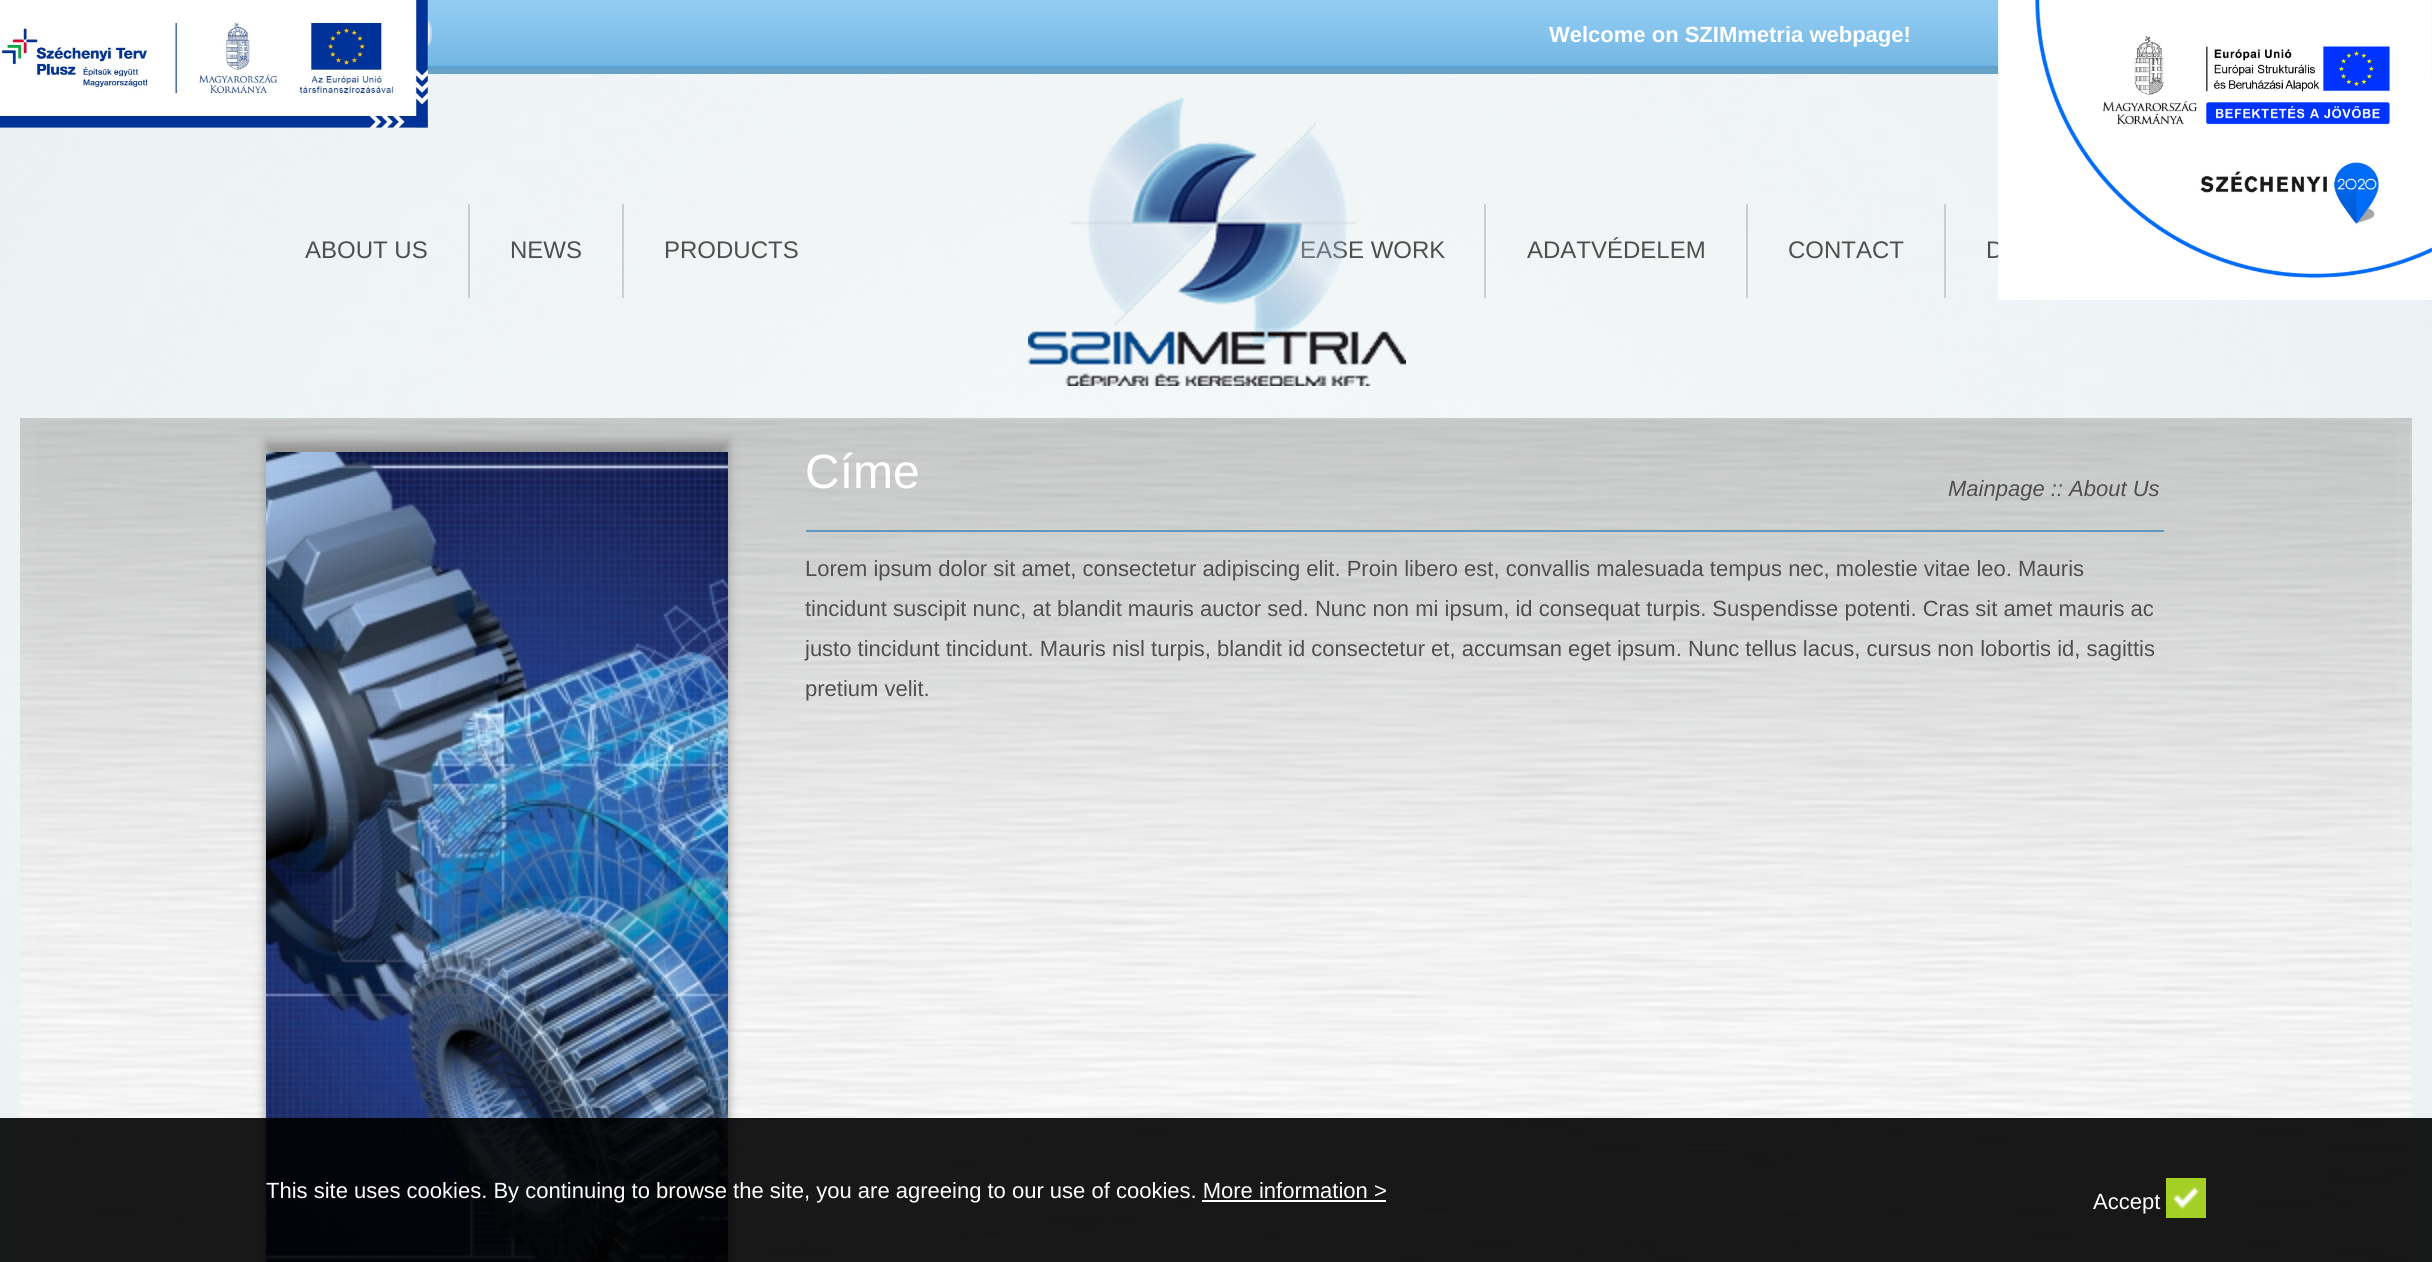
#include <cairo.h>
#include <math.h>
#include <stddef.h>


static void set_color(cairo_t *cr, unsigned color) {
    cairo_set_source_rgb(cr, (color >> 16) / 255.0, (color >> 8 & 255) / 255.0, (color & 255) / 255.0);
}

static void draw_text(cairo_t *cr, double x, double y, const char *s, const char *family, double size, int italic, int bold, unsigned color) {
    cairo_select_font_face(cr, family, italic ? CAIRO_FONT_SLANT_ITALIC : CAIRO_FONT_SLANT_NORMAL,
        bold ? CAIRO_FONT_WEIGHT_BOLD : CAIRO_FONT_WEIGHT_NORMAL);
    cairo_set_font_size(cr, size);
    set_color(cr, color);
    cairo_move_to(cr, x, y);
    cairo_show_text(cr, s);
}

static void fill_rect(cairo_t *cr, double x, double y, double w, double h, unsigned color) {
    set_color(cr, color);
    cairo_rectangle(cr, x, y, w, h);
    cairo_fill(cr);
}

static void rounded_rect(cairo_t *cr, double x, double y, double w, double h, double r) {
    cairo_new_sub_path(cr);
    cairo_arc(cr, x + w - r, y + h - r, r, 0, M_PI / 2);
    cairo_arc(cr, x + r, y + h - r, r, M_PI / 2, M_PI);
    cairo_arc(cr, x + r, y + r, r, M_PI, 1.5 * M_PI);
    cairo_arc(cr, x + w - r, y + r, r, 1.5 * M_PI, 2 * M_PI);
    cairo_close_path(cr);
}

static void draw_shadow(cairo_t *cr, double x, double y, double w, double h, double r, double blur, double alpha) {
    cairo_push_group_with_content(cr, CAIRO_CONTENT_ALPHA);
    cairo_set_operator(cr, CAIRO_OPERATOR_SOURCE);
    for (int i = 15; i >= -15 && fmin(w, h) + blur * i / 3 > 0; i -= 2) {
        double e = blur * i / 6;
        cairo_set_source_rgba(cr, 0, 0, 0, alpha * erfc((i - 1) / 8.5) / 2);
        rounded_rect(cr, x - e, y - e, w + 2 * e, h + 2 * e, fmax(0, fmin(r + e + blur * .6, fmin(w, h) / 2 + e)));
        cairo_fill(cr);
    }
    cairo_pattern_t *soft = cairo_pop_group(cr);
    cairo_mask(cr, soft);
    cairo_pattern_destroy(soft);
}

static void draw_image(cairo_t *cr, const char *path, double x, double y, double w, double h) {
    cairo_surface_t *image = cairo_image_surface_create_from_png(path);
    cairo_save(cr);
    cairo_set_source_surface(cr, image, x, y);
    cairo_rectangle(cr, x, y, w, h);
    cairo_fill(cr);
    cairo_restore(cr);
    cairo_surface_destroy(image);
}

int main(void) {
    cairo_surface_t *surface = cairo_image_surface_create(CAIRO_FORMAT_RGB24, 2432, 1262);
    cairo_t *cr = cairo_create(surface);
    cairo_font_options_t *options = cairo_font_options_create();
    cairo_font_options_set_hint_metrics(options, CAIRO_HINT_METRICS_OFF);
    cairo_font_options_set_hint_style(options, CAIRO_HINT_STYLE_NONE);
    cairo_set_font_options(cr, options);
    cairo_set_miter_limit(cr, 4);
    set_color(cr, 0xFFFFFF);
    cairo_paint(cr);
    draw_image(cr, "assets/img1.png", 0, 74, 2432, 1188);
    draw_image(cr, "assets/img2.png", 0, 0, 428, 128);
    draw_image(cr, "assets/img3.png", 428, 0, 2004, 74);
    draw_image(cr, "assets/img4.png", 428, 19, 4, 29);
    draw_text(cr, 1549, 42, "Welcome on SZIMmetria webpage!", "Liberation Sans", 22, 0, 1, 0xFFFFFF);
    fill_rect(cr, 468, 204, 2, 94, 0xCECECE);
    draw_text(cr, 305, 258, "ABOUT US", "Liberation Sans", 24, 0, 0, 0x4F4F4F);
    fill_rect(cr, 622, 204, 2, 94, 0xCECECE);
    draw_text(cr, 510, 258, "NEWS", "Liberation Sans", 24, 0, 0, 0x4F4F4F);
    draw_text(cr, 664, 258, "PRODUCTS", "Liberation Sans", 24, 0, 0, 0x4F4F4F);
    draw_text(cr, 1300, 258, "EASE WORK", "Liberation Sans", 24, 0, 0, 0x4F4F4F);
    draw_image(cr, "assets/img5.png", 1028, 98, 378, 288);
    fill_rect(cr, 1484, 204, 2, 94, 0xCECECE);
    fill_rect(cr, 1746, 204, 2, 94, 0xCECECE);
    draw_text(cr, 1527, 258, "ADATVÉDELEM", "Liberation Sans", 24, 0, 0, 0x4F4F4F);
    fill_rect(cr, 1944, 204, 2, 94, 0xCECECE);
    draw_text(cr, 1788, 258, "CONTACT", "Liberation Sans", 24, 0, 0, 0x4F4F4F);
    draw_text(cr, 1986, 258, "D", "Liberation Sans", 24, 0, 0, 0x4F4F4F);
    draw_image(cr, "assets/img6.png", 20, 418, 2392, 844);
    set_color(cr, 0x949494);
    draw_shadow(cr, 266, 442, 462, 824, 0, 5, 1);
    draw_image(cr, "assets/img7.png", 266, 452, 462, 810);
    fill_rect(cr, 806, 530, 1358, 2, 0x6098BC);
    draw_text(cr, 805, 488, "Címe", "Liberation Sans", 48, 0, 0, 0xFFFFFF);
    draw_text(cr, 805, 576, "Lorem ipsum dolor sit amet, consectetur adipiscing elit. Proin libero est, convallis malesuada tempus nec, molestie vitae leo. Mauris", "Liberation Sans", 22, 0, 0, 0x4F4F4F);
    draw_text(cr, 805, 616, "tincidunt suscipit nunc, at blandit mauris auctor sed. Nunc non mi ipsum, id consequat turpis. Suspendisse potenti. Cras sit amet mauris ac", "Liberation Sans", 22, 0, 0, 0x4F4F4F);
    draw_text(cr, 805, 656, "justo tincidunt tincidunt. Mauris nisl turpis, blandit id consectetur et, accumsan eget ipsum. Nunc tellus lacus, cursus non lobortis id, sagittis", "Liberation Sans", 22, 0, 0, 0x4F4F4F);
    draw_text(cr, 805, 696, "pretium velit.", "Liberation Sans", 22, 0, 0, 0x4F4F4F);
    draw_text(cr, 1948, 496, "Mainpage :: About Us", "Liberation Sans", 22, 1, 0, 0x4F4F4F);
    draw_image(cr, "assets/img8.png", 1998, 0, 434, 300);
    cairo_set_source_rgba(cr, 0, 0, 0, 0.9);
    cairo_rectangle(cr, 0, 1118, 2432, 144);
    cairo_fill(cr);
    draw_text(cr, 266, 1198, "This site uses cookies. By continuing to browse the site, you are agreeing to our use of cookies. More information >", "Liberation Sans", 22, 0, 0, 0xFFFFFF);
    fill_rect(cr, 1202, 1200, 184, 2, 0xFFFFFF);
    draw_text(cr, 2093, 1209, "Accept", "Liberation Sans", 22, 0, 0, 0xFFFFFF);
    draw_image(cr, "assets/img9.png", 2166, 1178, 40, 40);
    cairo_surface_write_to_png(surface, "output.png");
    cairo_font_options_destroy(options);
    cairo_destroy(cr);
    cairo_surface_destroy(surface);
    return 0;
}
